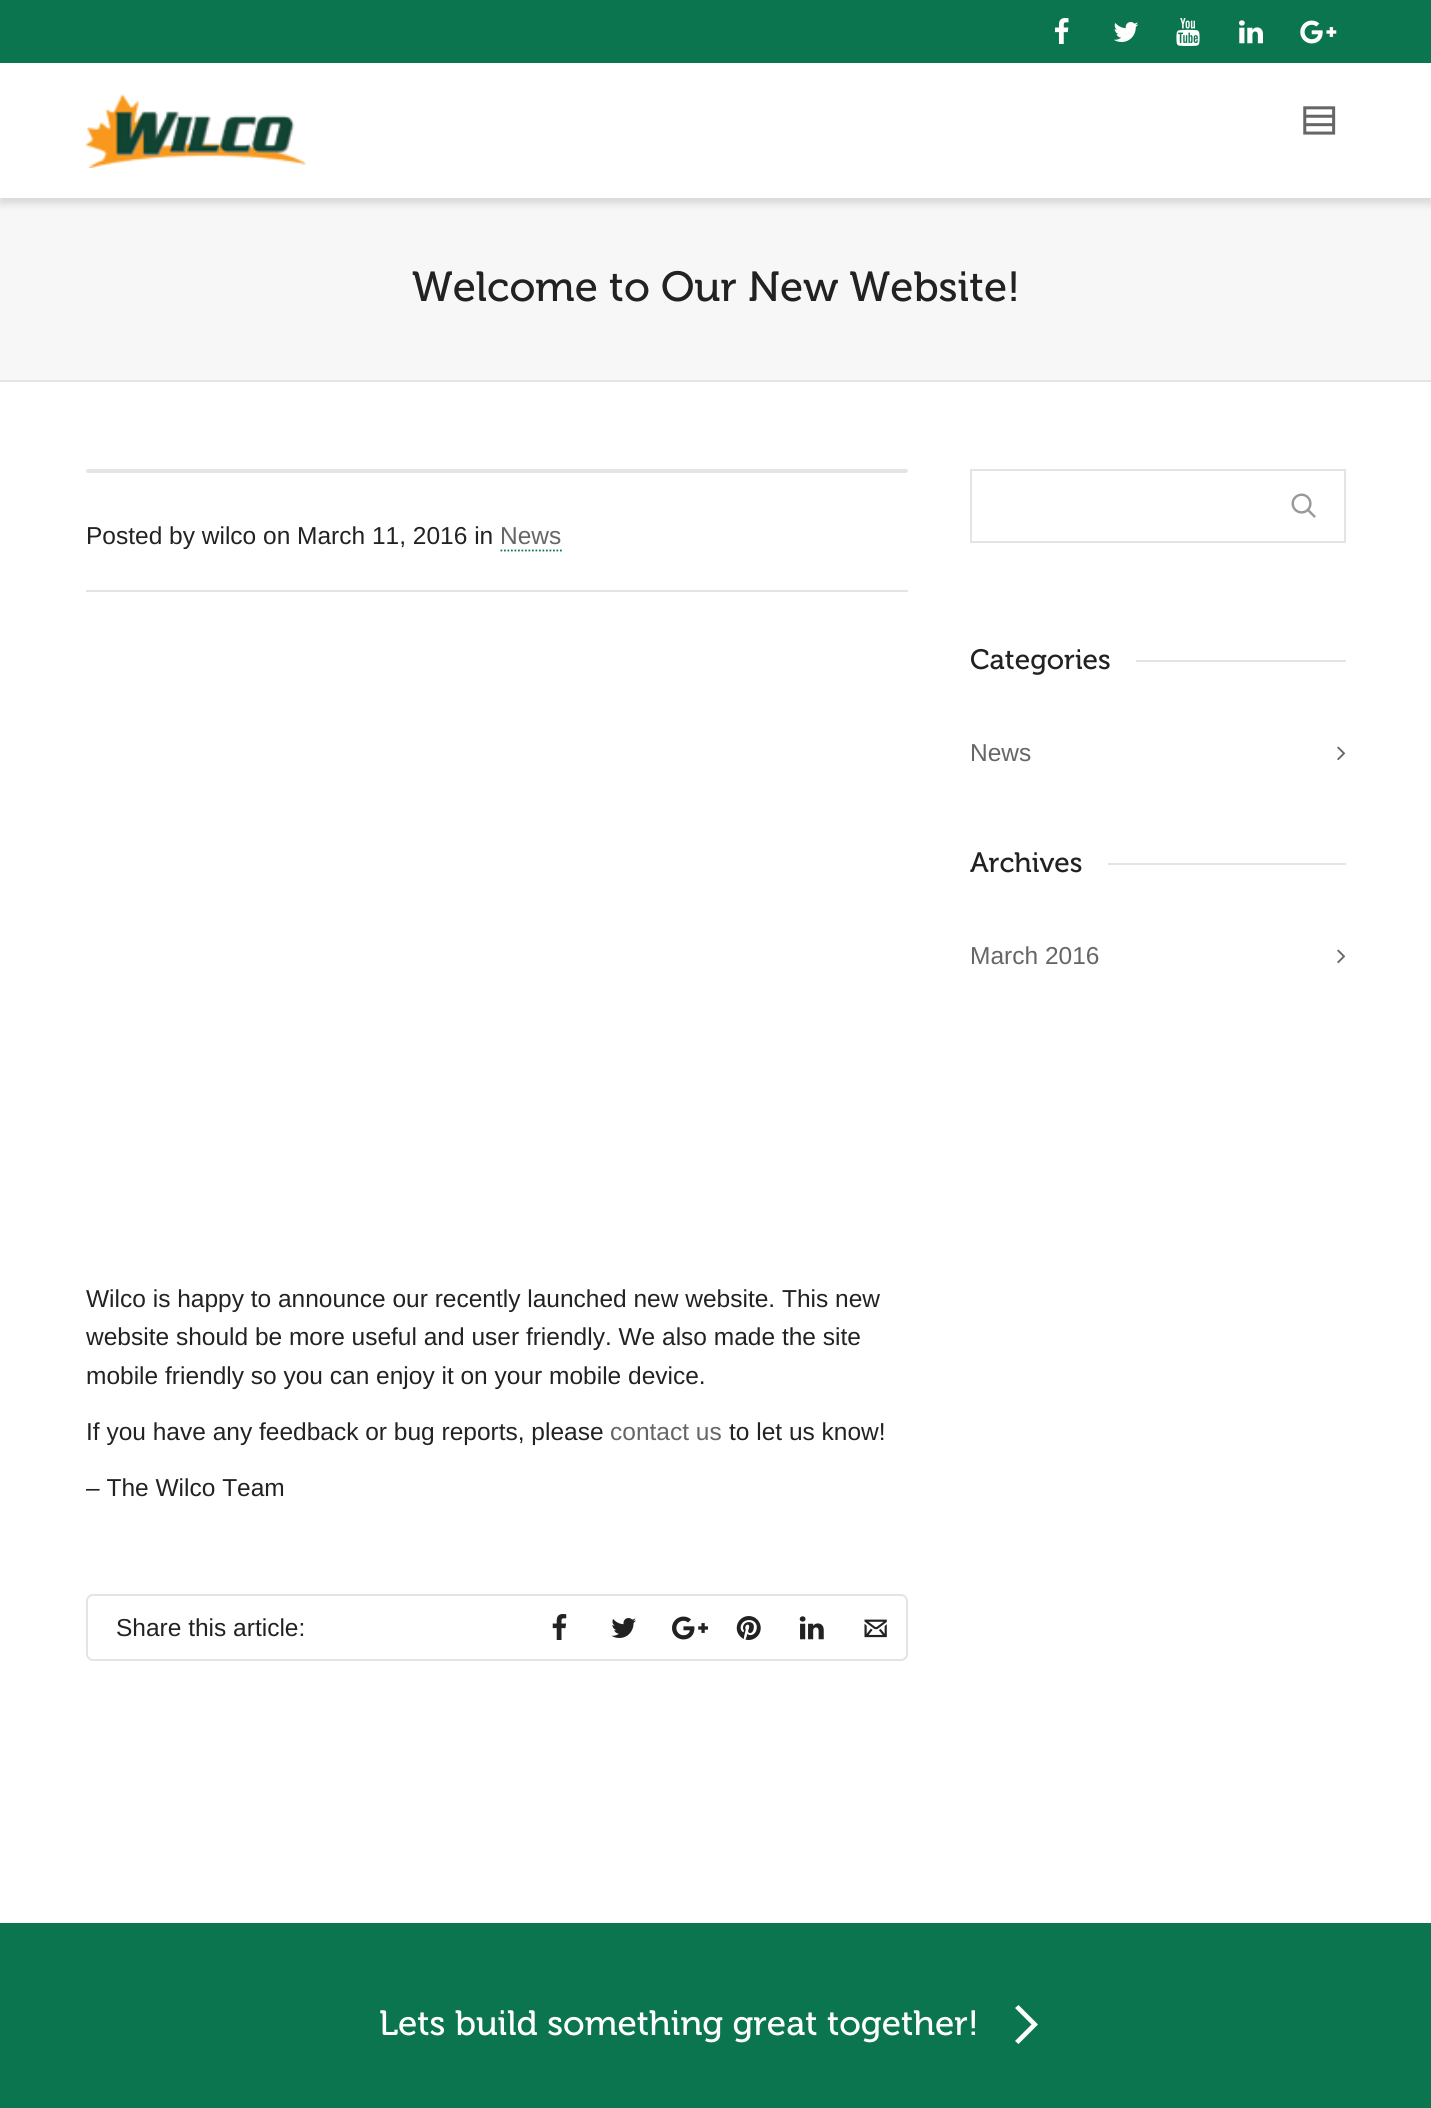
#include <cairo.h>
#include <math.h>
#include <stddef.h>


static void set_color(cairo_t *cr, unsigned color) {
    cairo_set_source_rgb(cr, (color >> 16) / 255.0, (color >> 8 & 255) / 255.0, (color & 255) / 255.0);
}

static void draw_text(cairo_t *cr, double x, double y, const char *s, const char *family, double size, int italic, int bold, unsigned color) {
    cairo_select_font_face(cr, family, italic ? CAIRO_FONT_SLANT_ITALIC : CAIRO_FONT_SLANT_NORMAL,
        bold ? CAIRO_FONT_WEIGHT_BOLD : CAIRO_FONT_WEIGHT_NORMAL);
    cairo_set_font_size(cr, size);
    set_color(cr, color);
    cairo_move_to(cr, x, y);
    cairo_show_text(cr, s);
}

static void fill_rect(cairo_t *cr, double x, double y, double w, double h, unsigned color) {
    set_color(cr, color);
    cairo_rectangle(cr, x, y, w, h);
    cairo_fill(cr);
}

static void rounded_rect(cairo_t *cr, double x, double y, double w, double h, double r) {
    cairo_new_sub_path(cr);
    cairo_arc(cr, x + w - r, y + h - r, r, 0, M_PI / 2);
    cairo_arc(cr, x + r, y + h - r, r, M_PI / 2, M_PI);
    cairo_arc(cr, x + r, y + r, r, M_PI, 1.5 * M_PI);
    cairo_arc(cr, x + w - r, y + r, r, 1.5 * M_PI, 2 * M_PI);
    cairo_close_path(cr);
}

static void draw_shadow(cairo_t *cr, double x, double y, double w, double h, double r, double blur, double alpha) {
    cairo_push_group_with_content(cr, CAIRO_CONTENT_ALPHA);
    cairo_set_operator(cr, CAIRO_OPERATOR_SOURCE);
    for (int i = 15; i >= -15 && fmin(w, h) + blur * i / 3 > 0; i -= 2) {
        double e = blur * i / 6;
        cairo_set_source_rgba(cr, 0, 0, 0, alpha * erfc((i - 1) / 8.5) / 2);
        rounded_rect(cr, x - e, y - e, w + 2 * e, h + 2 * e, fmax(0, fmin(r + e + blur * .6, fmin(w, h) / 2 + e)));
        cairo_fill(cr);
    }
    cairo_pattern_t *soft = cairo_pop_group(cr);
    cairo_mask(cr, soft);
    cairo_pattern_destroy(soft);
}

static void draw_image(cairo_t *cr, const char *path, double x, double y, double w, double h) {
    cairo_surface_t *image = cairo_image_surface_create_from_png(path);
    cairo_save(cr);
    cairo_set_source_surface(cr, image, x, y);
    cairo_rectangle(cr, x, y, w, h);
    cairo_fill(cr);
    cairo_restore(cr);
    cairo_surface_destroy(image);
}

int main(void) {
    cairo_surface_t *surface = cairo_image_surface_create(CAIRO_FORMAT_RGB24, 1431, 2108);
    cairo_t *cr = cairo_create(surface);
    cairo_font_options_t *options = cairo_font_options_create();
    cairo_font_options_set_hint_metrics(options, CAIRO_HINT_METRICS_OFF);
    cairo_font_options_set_hint_style(options, CAIRO_HINT_STYLE_NONE);
    cairo_set_font_options(cr, options);
    cairo_set_miter_limit(cr, 4);
    set_color(cr, 0xFFFFFF);
    cairo_paint(cr);
    fill_rect(cr, 0, 198, 1431, 182, 0xF7F7F7);
    set_color(cr, 0x000000);
    draw_shadow(cr, 0, 68, 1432, 135, 0, 4.5, 0.1);
    draw_shadow(cr, 0, 68, 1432, 135, 0, 4.5, 0.05);
    fill_rect(cr, 0, 0, 1431, 63, 0x0A754F);
    draw_image(cr, "assets/img1.png", 1055, 18, 14, 26);
    draw_image(cr, "assets/img2.png", 1113, 22, 26, 20);
    draw_image(cr, "assets/img3.png", 1176, 18, 24, 28);
    draw_image(cr, "assets/img4.png", 1239, 20, 24, 24);
    draw_image(cr, "assets/img5.png", 1300, 20, 37, 24);
    fill_rect(cr, 0, 63, 1431, 135, 0xFFFFFF);
    draw_image(cr, "assets/img6.png", 85, 94, 221, 74);
    draw_image(cr, "assets/img7.png", 1303, 106, 33, 29);
    fill_rect(cr, 0, 380, 1431, 2, 0xE4E4E4);
    draw_text(cr, 412, 301, "Welcome to Our New Website!", "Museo", 42, 0, 0, 0x222222);
    set_color(cr, 0xE4E4E4);
    rounded_rect(cr, 86, 469, 822, 4, 2);
    cairo_fill(cr);
    fill_rect(cr, 86, 590, 822, 2, 0xE4E4E4);
    draw_text(cr, 86, 544, "Posted by wilco on March 11, 2016 in", "Liberation Sans", 24.5, 0, 0, 0x222222);
    draw_text(cr, 500, 544, "News", "Liberation Sans", 24.5, 0, 0, 0x666666);
    cairo_new_path(cr);
    cairo_move_to(cr, 500.5, 550.5);
    cairo_line_to(cr, 562, 550.5);
    set_color(cr, 0x0A754F);
    cairo_set_line_width(cr, 1.8);
    cairo_set_dash(cr, (double[]){1.75, 1.75}, 2, 0);
    cairo_stroke(cr);
    draw_text(cr, 86, 1307, "Wilco is happy to announce our recently launched new website. This new", "Liberation Sans", 24.5, 0, 0, 0x222222);
    draw_text(cr, 86, 1345, "website should be more useful and user friendly. We also made the site", "Liberation Sans", 24.5, 0, 0, 0x222222);
    draw_text(cr, 86, 1384, "mobile friendly so you can enjoy it on your mobile device.", "Liberation Sans", 24.5, 0, 0, 0x222222);
    draw_text(cr, 86, 1440, "If you have any feedback or bug reports, please", "Liberation Sans", 24.5, 0, 0, 0x222222);
    draw_text(cr, 610, 1440, "contact us", "Liberation Sans", 24.5, 0, 0, 0x666666);
    draw_text(cr, 729, 1440, "to let us know!", "Liberation Sans", 24.5, 0, 0, 0x222222);
    draw_text(cr, 86, 1496, "– The Wilco Team", "Liberation Sans", 24.5, 0, 0, 0x222222);
    rounded_rect(cr, 87, 1595, 820, 65, 6);
    set_color(cr, 0xE4E4E4);
    cairo_set_line_width(cr, 2);
    cairo_set_dash(cr, NULL, 0, 0);
    cairo_stroke(cr);
    draw_text(cr, 116, 1636, "Share this article:", "Liberation Sans", 24.5, 0, 0, 0x222222);
    draw_image(cr, "assets/img8.png", 552, 1614, 15, 26);
    draw_image(cr, "assets/img9.png", 611, 1618, 25, 20);
    draw_image(cr, "assets/img10.png", 672, 1616, 36, 24);
    draw_image(cr, "assets/img11.png", 736, 1616, 25, 24);
    draw_image(cr, "assets/img12.png", 799, 1616, 25, 24);
    draw_image(cr, "assets/img13.png", 864, 1619, 23, 19);
    cairo_rectangle(cr, 971, 470, 374, 72);
    set_color(cr, 0xE4E4E4);
    cairo_stroke(cr);
    draw_image(cr, "assets/img14.png", 1291, 493, 25, 25);
    draw_text(cr, 970, 669, "Categories", "Museo", 28, 0, 0, 0x222222);
    fill_rect(cr, 1136, 660, 210, 2, 0xE4E4E4);
    draw_text(cr, 970, 761, "News", "Liberation Sans", 24.5, 0, 0, 0x666666);
    draw_image(cr, "assets/img15.png", 1337, 746, 9, 15);
    cairo_save(cr);
    cairo_rectangle(cr, 970, 845, 376, 35);
    cairo_clip(cr);
    draw_text(cr, 970, 872, "Archives", "Museo", 28, 0, 0, 0x222222);
    cairo_restore(cr);
    fill_rect(cr, 1108, 863, 238, 2, 0xE4E4E4);
    draw_text(cr, 970, 964, "March 2016", "Liberation Sans", 24.5, 0, 0, 0x666666);
    draw_image(cr, "assets/img15.png", 1337, 949, 9, 15);
    fill_rect(cr, 0, 1923, 1431, 185, 0x0A754F);
    draw_text(cr, 379, 2035, "Lets build something great together!", "Museo", 35, 0, 0, 0xFFFFFF);
    cairo_new_path(cr);
    cairo_move_to(cr, 1018.5, 2044);
    cairo_line_to(cr, 1015, 2041);
    cairo_line_to(cr, 1031.5, 2024.5);
    cairo_line_to(cr, 1015, 2008);
    cairo_line_to(cr, 1018.5, 2005);
    cairo_line_to(cr, 1038, 2024.5);
    cairo_close_path(cr);
    cairo_fill(cr);
    cairo_surface_write_to_png(surface, "output.png");
    cairo_font_options_destroy(options);
    cairo_destroy(cr);
    cairo_surface_destroy(surface);
    return 0;
}
